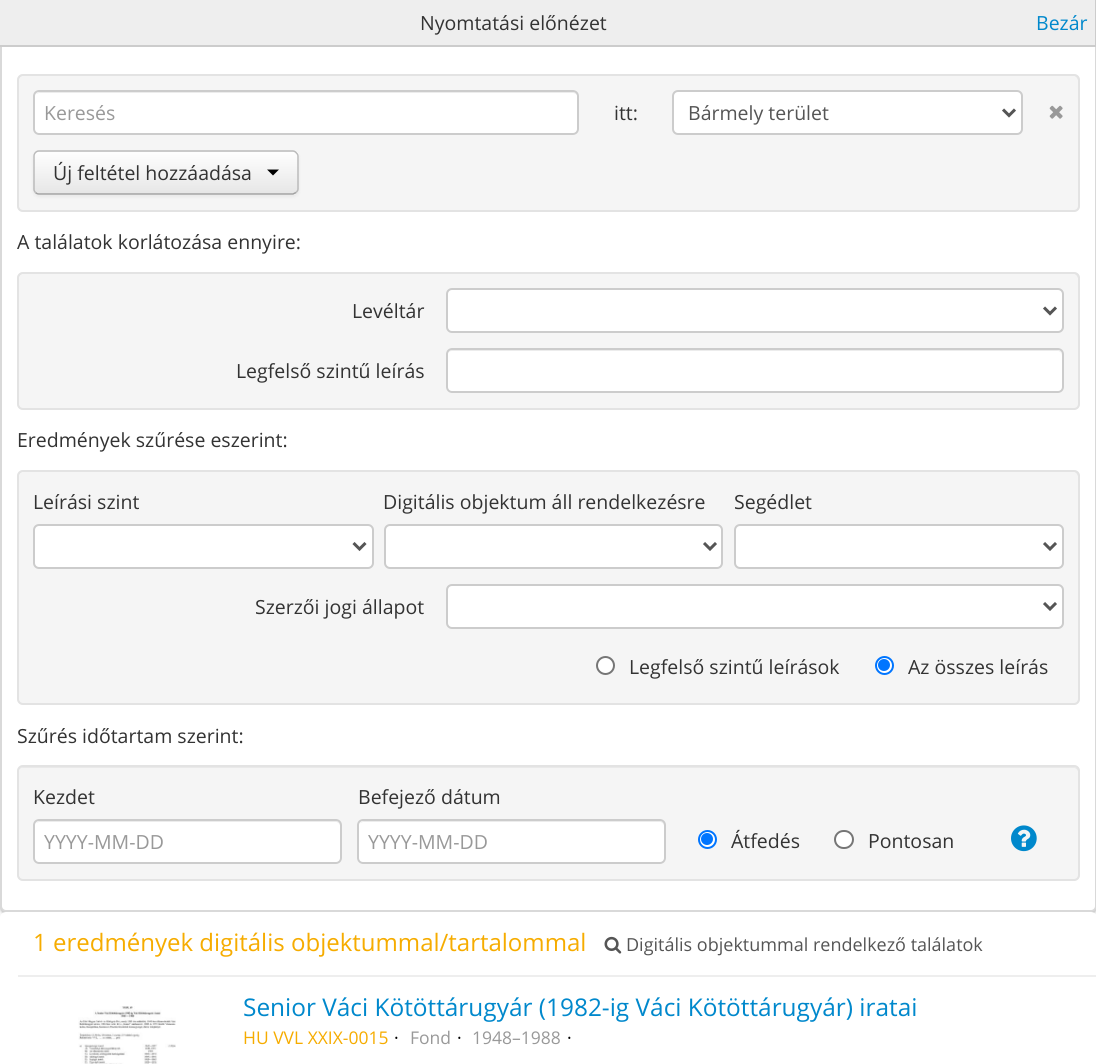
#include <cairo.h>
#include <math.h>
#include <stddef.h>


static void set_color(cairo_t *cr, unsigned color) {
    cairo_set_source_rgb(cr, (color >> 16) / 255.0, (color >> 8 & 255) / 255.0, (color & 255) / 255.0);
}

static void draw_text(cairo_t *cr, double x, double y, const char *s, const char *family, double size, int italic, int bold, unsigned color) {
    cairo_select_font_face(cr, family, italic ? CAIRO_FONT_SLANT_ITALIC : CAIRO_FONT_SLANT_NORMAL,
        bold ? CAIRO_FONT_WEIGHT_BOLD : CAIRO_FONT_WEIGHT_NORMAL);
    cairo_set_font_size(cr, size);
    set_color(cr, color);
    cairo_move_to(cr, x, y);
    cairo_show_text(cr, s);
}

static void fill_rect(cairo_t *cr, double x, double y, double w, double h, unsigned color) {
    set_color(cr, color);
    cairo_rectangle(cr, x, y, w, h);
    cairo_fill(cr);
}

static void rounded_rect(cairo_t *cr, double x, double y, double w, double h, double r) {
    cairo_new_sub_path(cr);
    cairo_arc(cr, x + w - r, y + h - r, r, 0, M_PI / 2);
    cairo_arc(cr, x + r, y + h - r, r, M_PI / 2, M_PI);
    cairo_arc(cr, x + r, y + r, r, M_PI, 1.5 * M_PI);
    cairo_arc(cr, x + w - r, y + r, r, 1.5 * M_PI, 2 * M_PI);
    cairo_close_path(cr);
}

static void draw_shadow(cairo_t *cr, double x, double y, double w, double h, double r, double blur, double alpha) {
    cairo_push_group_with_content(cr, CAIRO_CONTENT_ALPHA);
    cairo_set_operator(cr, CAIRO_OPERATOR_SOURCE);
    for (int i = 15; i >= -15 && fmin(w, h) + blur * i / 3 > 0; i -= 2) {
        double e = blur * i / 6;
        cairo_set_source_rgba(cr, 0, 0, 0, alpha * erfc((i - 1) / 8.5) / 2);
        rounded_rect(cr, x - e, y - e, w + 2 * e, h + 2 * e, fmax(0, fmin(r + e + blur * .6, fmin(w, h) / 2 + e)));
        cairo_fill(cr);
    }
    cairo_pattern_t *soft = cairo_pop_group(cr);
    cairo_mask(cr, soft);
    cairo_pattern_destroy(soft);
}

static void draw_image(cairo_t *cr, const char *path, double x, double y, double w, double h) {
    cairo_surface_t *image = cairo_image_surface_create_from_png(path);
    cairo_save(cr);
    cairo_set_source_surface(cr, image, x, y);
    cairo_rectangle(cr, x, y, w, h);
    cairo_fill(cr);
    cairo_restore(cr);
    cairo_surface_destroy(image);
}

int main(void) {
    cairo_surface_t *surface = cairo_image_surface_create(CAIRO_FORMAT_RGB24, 1096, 1064);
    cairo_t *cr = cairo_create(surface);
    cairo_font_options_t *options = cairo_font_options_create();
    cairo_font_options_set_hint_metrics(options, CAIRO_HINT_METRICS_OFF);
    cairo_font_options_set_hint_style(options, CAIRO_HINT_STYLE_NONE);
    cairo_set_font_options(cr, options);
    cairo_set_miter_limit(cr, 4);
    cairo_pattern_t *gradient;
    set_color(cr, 0xF8F8F8);
    cairo_paint(cr);
    set_color(cr, 0x000000);
    draw_shadow(cr, 0, -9, 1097, 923, 6, 1, 0.2);
    set_color(cr, 0xFFFFFF);
    rounded_rect(cr, 1, -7, 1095, 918, 5);
    cairo_fill_preserve(cr);
    set_color(cr, 0xD9D9D9);
    cairo_stroke(cr);
    fill_rect(cr, 0, 0, 1095, 45, 0xEEEEEE);
    fill_rect(cr, 1095, 0, 1, 47, 0xCCCCCC);
    fill_rect(cr, 0, 45, 1096, 2, 0xCCCCCC);
    draw_text(cr, 420, 30, "Nyomtatási előnézet", "Open Sans", 19.5, 0, 0, 0x333333);
    draw_text(cr, 1036, 30, "Bezár", "Open Sans", 19.5, 0, 0, 0x0088CC);
    set_color(cr, 0xF5F5F5);
    rounded_rect(cr, 17, 74, 1063, 138, 6);
    cairo_fill(cr);
    set_color(cr, 0xE9E9E9);
    cairo_new_path(cr);
    cairo_move_to(cr, 22, 76);
    cairo_line_to(cr, 1074, 76);
    cairo_curve_to(cr, 1076, 76, 1078, 79, 1078, 81);
    cairo_line_to(cr, 1078, 208);
    cairo_curve_to(cr, 1079, 207, 1079, 206, 1079, 205);
    cairo_line_to(cr, 1079, 80);
    cairo_curve_to(cr, 1079, 77, 1077, 75, 1074, 75);
    cairo_line_to(cr, 23, 75);
    cairo_curve_to(cr, 20, 75, 18, 77, 18, 80);
    cairo_line_to(cr, 18, 81);
    cairo_curve_to(cr, 18, 79, 20, 76, 22, 76);
    cairo_close_path(cr);
    cairo_fill(cr);
    rounded_rect(cr, 18, 75, 1061, 136, 5);
    set_color(cr, 0xE3E3E3);
    cairo_stroke(cr);
    set_color(cr, 0xFFFFFF);
    rounded_rect(cr, 33, 90, 546, 45, 6);
    cairo_fill(cr);
    set_color(cr, 0xECECEC);
    cairo_new_path(cr);
    cairo_move_to(cr, 39, 93);
    cairo_line_to(cr, 573, 93);
    cairo_curve_to(cr, 575, 93, 578, 95, 578, 98);
    cairo_line_to(cr, 578, 97);
    cairo_curve_to(cr, 578, 94, 576, 92, 573, 92);
    cairo_line_to(cr, 40, 92);
    cairo_curve_to(cr, 38, 92, 37, 93, 36, 94);
    cairo_close_path(cr);
    cairo_fill(cr);
    rounded_rect(cr, 34, 91, 544, 43, 5);
    set_color(cr, 0xCCCCCC);
    cairo_stroke(cr);
    draw_text(cr, 44, 120, "Keresés", "Open Sans", 19.5, 0, 0, 0x999999);
    draw_text(cr, 614, 120, "itt:", "Open Sans", 19.5, 0, 0, 0x333333);
    set_color(cr, 0xFFFFFF);
    rounded_rect(cr, 673, 91, 349, 43, 5);
    cairo_fill_preserve(cr);
    set_color(cr, 0xCCCCCC);
    cairo_stroke(cr);
    cairo_new_path(cr);
    cairo_move_to(cr, 1003, 109.5);
    cairo_line_to(cr, 1009, 115.5);
    cairo_line_to(cr, 1015, 109.5);
    set_color(cr, 0x555555);
    cairo_set_line_width(cr, 3);
    cairo_stroke(cr);
    draw_text(cr, 688, 120, "Bármely terület", "Open Sans", 19.5, 0, 0, 0x555555);
    draw_image(cr, "assets/img1.png", 1049, 105, 14, 14);
    set_color(cr, 0x000000);
    draw_shadow(cr, 33, 152, 266, 45, 6, 1.5, 0.05);
    set_color(cr, 0xF5F5F5);
    rounded_rect(cr, 33, 150, 266, 45, 6);
    cairo_fill(cr);
    cairo_save(cr);
    rounded_rect(cr, 33, 150, 266, 45, 6);
    cairo_clip(cr);
    gradient = cairo_pattern_create_linear(166, 151, 166, 194);
    cairo_pattern_add_color_stop_rgba(gradient, 0, 1, 1, 1, 1);
    cairo_pattern_add_color_stop_rgba(gradient, 1, 0.902, 0.902, 0.902, 1);
    cairo_set_source(cr, gradient);
    cairo_pattern_destroy(gradient);
    cairo_rectangle(cr, 33, 152, 266, 42);
    cairo_fill(cr);
    cairo_restore(cr);
    cairo_new_path(cr);
    cairo_move_to(cr, 296, 192.5);
    cairo_line_to(cr, 293, 194);
    cairo_line_to(cr, 39, 194);
    cairo_curve_to(cr, 37.5, 194, 36.5, 193.5, 35.5, 192.5);
    set_color(cr, 0xA2A2A2);
    cairo_set_line_width(cr, 1.5);
    cairo_stroke(cr);
    cairo_new_path(cr);
    cairo_move_to(cr, 35.5, 192.5);
    cairo_curve_to(cr, 34.5, 191.5, 34, 190.5, 34, 189);
    cairo_line_to(cr, 34, 156);
    cairo_curve_to(cr, 34, 154.5, 34.5, 153.5, 35.5, 152.5);
    cairo_curve_to(cr, 36.5, 151.5, 37.5, 151, 39, 151);
    cairo_line_to(cr, 292.5, 151);
    cairo_curve_to(cr, 294, 151, 295, 151.5, 296, 152.5);
    cairo_curve_to(cr, 297, 153.5, 298, 154.5, 298, 156);
    cairo_line_to(cr, 298, 189);
    cairo_curve_to(cr, 298, 190.5, 297, 191.5, 296, 192.5);
    set_color(cr, 0xBBBBBB);
    cairo_stroke(cr);
    draw_text(cr, 53, 180, "Új feltétel hozzáadása", "Open Sans", 19.5, 0, 0, 0x333333);
    set_color(cr, 0x000000);
    cairo_new_path(cr);
    cairo_move_to(cr, 267, 169.5);
    cairo_line_to(cr, 279, 169.5);
    cairo_line_to(cr, 273, 175.5);
    cairo_close_path(cr);
    cairo_fill(cr);
    draw_text(cr, 17, 249, "A találatok korlátozása ennyire:", "Open Sans", 19.5, 0, 0, 0x333333);
    set_color(cr, 0xF5F5F5);
    rounded_rect(cr, 17, 272, 1063, 138, 6);
    cairo_fill(cr);
    set_color(cr, 0xE9E9E9);
    cairo_new_path(cr);
    cairo_move_to(cr, 22, 274);
    cairo_line_to(cr, 1074, 274);
    cairo_curve_to(cr, 1076, 274, 1078, 277, 1078, 279);
    cairo_line_to(cr, 1078, 406);
    cairo_curve_to(cr, 1079, 405, 1079, 404, 1079, 403);
    cairo_line_to(cr, 1079, 278);
    cairo_curve_to(cr, 1079, 275, 1077, 273, 1074, 273);
    cairo_line_to(cr, 23, 273);
    cairo_curve_to(cr, 20, 273, 18, 275, 18, 278);
    cairo_line_to(cr, 18, 279);
    cairo_curve_to(cr, 18, 277, 20, 274, 22, 274);
    cairo_close_path(cr);
    cairo_fill(cr);
    rounded_rect(cr, 18, 273, 1061, 136, 5);
    set_color(cr, 0xE3E3E3);
    cairo_set_line_width(cr, 2);
    cairo_stroke(cr);
    draw_text(cr, 352, 318, "Levéltár", "Open Sans", 19.5, 0, 0, 0x333333);
    set_color(cr, 0xFFFFFF);
    rounded_rect(cr, 447, 289, 616, 43, 5);
    cairo_fill_preserve(cr);
    set_color(cr, 0xCCCCCC);
    cairo_stroke(cr);
    cairo_new_path(cr);
    cairo_move_to(cr, 1044, 307.5);
    cairo_line_to(cr, 1050, 313.5);
    cairo_line_to(cr, 1056, 307.5);
    set_color(cr, 0x555555);
    cairo_set_line_width(cr, 3);
    cairo_stroke(cr);
    draw_text(cr, 236, 378, "Legfelső szintű leírás", "Open Sans", 19.5, 0, 0, 0x333333);
    set_color(cr, 0xFFFFFF);
    rounded_rect(cr, 446, 348, 618, 45, 6);
    cairo_fill(cr);
    set_color(cr, 0xECECEC);
    cairo_new_path(cr);
    cairo_move_to(cr, 452, 351);
    cairo_line_to(cr, 1058, 351);
    cairo_curve_to(cr, 1060, 351, 1062, 353, 1062, 356);
    cairo_line_to(cr, 1062, 355);
    cairo_curve_to(cr, 1062, 352, 1060, 350, 1057, 350);
    cairo_line_to(cr, 452, 350);
    cairo_curve_to(cr, 449, 350, 447, 352, 447, 355);
    cairo_line_to(cr, 447, 356);
    cairo_curve_to(cr, 447, 353, 449, 351, 452, 351);
    cairo_close_path(cr);
    cairo_fill(cr);
    rounded_rect(cr, 447, 349, 616, 43, 5);
    set_color(cr, 0xCCCCCC);
    cairo_set_line_width(cr, 2);
    cairo_stroke(cr);
    draw_text(cr, 17, 447, "Eredmények szűrése eszerint:", "Open Sans", 19.5, 0, 0, 0x333333);
    set_color(cr, 0xF5F5F5);
    rounded_rect(cr, 17, 470, 1063, 235, 6);
    cairo_fill(cr);
    set_color(cr, 0xE9E9E9);
    cairo_new_path(cr);
    cairo_move_to(cr, 22, 472);
    cairo_line_to(cr, 1074, 472);
    cairo_curve_to(cr, 1076, 472, 1078, 475, 1078, 477);
    cairo_line_to(cr, 1078, 700);
    cairo_line_to(cr, 1077, 703);
    cairo_curve_to(cr, 1078, 702, 1079, 700, 1079, 699);
    cairo_line_to(cr, 1079, 476);
    cairo_curve_to(cr, 1079, 473, 1077, 471, 1074, 471);
    cairo_line_to(cr, 23, 471);
    cairo_curve_to(cr, 20, 471, 18, 473, 18, 476);
    cairo_line_to(cr, 18, 477);
    cairo_curve_to(cr, 18, 475, 20, 472, 22, 472);
    cairo_close_path(cr);
    cairo_fill(cr);
    rounded_rect(cr, 18, 471, 1061, 233, 5);
    set_color(cr, 0xE3E3E3);
    cairo_stroke(cr);
    draw_text(cr, 33, 509, "Leírási szint", "Open Sans", 19.5, 0, 0, 0x333333);
    set_color(cr, 0xFFFFFF);
    rounded_rect(cr, 34, 525, 339, 43, 5);
    cairo_fill_preserve(cr);
    set_color(cr, 0xCCCCCC);
    cairo_stroke(cr);
    cairo_new_path(cr);
    cairo_move_to(cr, 353.5, 543);
    cairo_line_to(cr, 359.5, 549);
    cairo_line_to(cr, 365.5, 543);
    set_color(cr, 0x555555);
    cairo_set_line_width(cr, 3);
    cairo_stroke(cr);
    draw_text(cr, 383, 509, "Digitális objektum áll rendelkezésre", "Open Sans", 19.5, 0, 0, 0x333333);
    set_color(cr, 0xFFFFFF);
    rounded_rect(cr, 385, 525, 337, 43, 5);
    cairo_fill_preserve(cr);
    set_color(cr, 0xCCCCCC);
    cairo_set_line_width(cr, 2);
    cairo_stroke(cr);
    cairo_new_path(cr);
    cairo_move_to(cr, 704, 543);
    cairo_line_to(cr, 710, 549);
    cairo_line_to(cr, 716, 543);
    set_color(cr, 0x555555);
    cairo_set_line_width(cr, 3);
    cairo_stroke(cr);
    draw_text(cr, 734, 509, "Segédlet", "Open Sans", 19.5, 0, 0, 0x333333);
    set_color(cr, 0xFFFFFF);
    rounded_rect(cr, 735, 525, 328, 43, 5);
    cairo_fill_preserve(cr);
    set_color(cr, 0xCCCCCC);
    cairo_set_line_width(cr, 2);
    cairo_stroke(cr);
    cairo_new_path(cr);
    cairo_move_to(cr, 1044, 543);
    cairo_line_to(cr, 1050, 549);
    cairo_line_to(cr, 1056, 543);
    set_color(cr, 0x555555);
    cairo_set_line_width(cr, 3);
    cairo_stroke(cr);
    draw_text(cr, 255, 614, "Szerzői jogi állapot", "Open Sans", 19.5, 0, 0, 0x333333);
    set_color(cr, 0xFFFFFF);
    rounded_rect(cr, 447, 585, 616, 43, 5);
    cairo_fill_preserve(cr);
    set_color(cr, 0xCCCCCC);
    cairo_set_line_width(cr, 2);
    cairo_stroke(cr);
    cairo_new_path(cr);
    cairo_move_to(cr, 1044, 603);
    cairo_line_to(cr, 1050, 609);
    cairo_line_to(cr, 1056, 603);
    set_color(cr, 0x555555);
    cairo_set_line_width(cr, 3);
    cairo_stroke(cr);
    set_color(cr, 0xFFFFFF);
    cairo_arc(cr, 605.5, 665.5, 8.5, 0, 2 * M_PI);
    cairo_fill_preserve(cr);
    set_color(cr, 0x767676);
    cairo_set_line_width(cr, 2);
    cairo_stroke(cr);
    draw_text(cr, 629, 674, "Legfelső szintű leírások", "Open Sans", 19.5, 0, 0, 0x333333);
    set_color(cr, 0xFFFFFF);
    cairo_new_path(cr);
    cairo_arc(cr, 884.5, 665.5, 8.5, 0, 2 * M_PI);
    cairo_fill_preserve(cr);
    set_color(cr, 0x0075FF);
    cairo_stroke(cr);
    cairo_arc(cr, 884, 665, 6, 0, 2 * M_PI);
    cairo_fill(cr);
    draw_text(cr, 908, 674, "Az összes leírás", "Open Sans", 19.5, 0, 0, 0x333333);
    draw_text(cr, 17, 743, "Szűrés időtartam szerint:", "Open Sans", 19.5, 0, 0, 0x333333);
    set_color(cr, 0xF5F5F5);
    rounded_rect(cr, 17, 765, 1063, 116, 6);
    cairo_fill(cr);
    set_color(cr, 0xE9E9E9);
    cairo_new_path(cr);
    cairo_move_to(cr, 22, 768);
    cairo_line_to(cr, 1074, 768);
    cairo_curve_to(cr, 1076, 768, 1078, 770, 1078, 772);
    cairo_line_to(cr, 1078, 877);
    cairo_curve_to(cr, 1079, 876, 1079, 875, 1079, 874);
    cairo_line_to(cr, 1079, 772);
    cairo_curve_to(cr, 1079, 769, 1077, 767, 1074, 767);
    cairo_line_to(cr, 23, 767);
    cairo_curve_to(cr, 20, 767, 18, 769, 18, 772);
    cairo_curve_to(cr, 18, 770, 20, 768, 22, 768);
    cairo_close_path(cr);
    cairo_fill(cr);
    rounded_rect(cr, 18, 766, 1061, 114, 5);
    set_color(cr, 0xE3E3E3);
    cairo_stroke(cr);
    draw_text(cr, 33, 804, "Kezdet", "Open Sans", 19.5, 0, 0, 0x333333);
    set_color(cr, 0xFFFFFF);
    rounded_rect(cr, 33, 819, 309, 45, 6);
    cairo_fill(cr);
    set_color(cr, 0xECECEC);
    cairo_new_path(cr);
    cairo_move_to(cr, 39, 822);
    cairo_line_to(cr, 336, 822);
    cairo_curve_to(cr, 338, 822, 340, 824, 340, 826);
    cairo_line_to(cr, 340, 861);
    cairo_curve_to(cr, 341, 860, 341, 859, 341, 858);
    cairo_line_to(cr, 341, 826);
    cairo_curve_to(cr, 341, 823, 339, 821, 336, 821);
    cairo_line_to(cr, 40, 821);
    cairo_curve_to(cr, 38, 821, 37, 822, 36, 823);
    cairo_close_path(cr);
    cairo_fill(cr);
    rounded_rect(cr, 34, 820, 307, 43, 5);
    set_color(cr, 0xCCCCCC);
    cairo_stroke(cr);
    draw_text(cr, 44, 849, "YYYY-MM-DD", "Open Sans", 19.5, 0, 0, 0x999999);
    draw_text(cr, 358, 804, "Befejező dátum", "Open Sans", 19.5, 0, 0, 0x333333);
    set_color(cr, 0xFFFFFF);
    rounded_rect(cr, 357, 819, 309, 45, 6);
    cairo_fill(cr);
    set_color(cr, 0xECECEC);
    cairo_new_path(cr);
    cairo_move_to(cr, 363, 822);
    cairo_line_to(cr, 660, 822);
    cairo_curve_to(cr, 662, 822, 664, 824, 664, 826);
    cairo_line_to(cr, 664, 861);
    cairo_curve_to(cr, 665, 860, 665, 859, 665, 858);
    cairo_line_to(cr, 665, 826);
    cairo_curve_to(cr, 665, 823, 663, 821, 660, 821);
    cairo_line_to(cr, 364, 821);
    cairo_curve_to(cr, 362, 821, 361, 822, 360, 823);
    cairo_close_path(cr);
    cairo_fill(cr);
    rounded_rect(cr, 358, 820, 307, 43, 5);
    set_color(cr, 0xCCCCCC);
    cairo_stroke(cr);
    draw_text(cr, 368, 849, "YYYY-MM-DD", "Open Sans", 19.5, 0, 0, 0x999999);
    set_color(cr, 0xFFFFFF);
    cairo_new_path(cr);
    cairo_arc(cr, 707.5, 839.5, 8.5, 0, 2 * M_PI);
    cairo_fill_preserve(cr);
    set_color(cr, 0x0075FF);
    cairo_stroke(cr);
    cairo_arc(cr, 707, 839, 6, 0, 2 * M_PI);
    cairo_fill(cr);
    draw_text(cr, 731, 848, "Átfedés", "Open Sans", 19.5, 0, 0, 0x333333);
    set_color(cr, 0xFFFFFF);
    rounded_rect(cr, 835, 831, 18, 17, 8.5);
    cairo_fill_preserve(cr);
    set_color(cr, 0x767676);
    cairo_stroke(cr);
    draw_text(cr, 868, 848, "Pontosan", "Open Sans", 19.5, 0, 0, 0x333333);
    draw_image(cr, "assets/img2.png", 1011, 825, 26, 27);
    set_color(cr, 0xFFFFFF);
    rounded_rect(cr, 0, 912, 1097, 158, 6);
    cairo_fill(cr);
    fill_rect(cr, 18, 975, 1078, 2, 0xEEEEEE);
    draw_text(cr, 33, 951, "1 eredmények digitális objektummal/tartalommal", "Open Sans", 24, 0, 0, 0xF6AC00);
    draw_image(cr, "assets/img3.png", 604, 936, 18, 18);
    draw_text(cr, 626, 951, "Digitális objektummal rendelkező találatok", "Open Sans", 18, 0, 0, 0x555555);
    draw_image(cr, "assets/img4.png", 78, 1006, 98, 58);
    draw_text(cr, 243, 1016, "Senior Váci Kötöttárugyár (1982-ig Váci Kötöttárugyár) iratai", "Open Sans", 24.4, 0, 0, 0x0088CC);
    draw_text(cr, 243, 1044, "HU VVL XXIX-0015", "Open Sans", 17.5, 0, 0, 0xF6AC00);
    draw_text(cr, 394, 1044, "·", "Open Sans", 17.5, 0, 0, 0x000000);
    draw_text(cr, 410, 1044, "Fond", "Open Sans", 17.5, 0, 0, 0x999999);
    draw_text(cr, 457, 1044, "·", "Open Sans", 17.5, 0, 0, 0x000000);
    draw_text(cr, 472, 1044, "1948–1988", "Open Sans", 17.5, 0, 0, 0x999999);
    draw_text(cr, 567, 1044, "·", "Open Sans", 17.5, 0, 0, 0x000000);
    cairo_surface_write_to_png(surface, "output.png");
    cairo_font_options_destroy(options);
    cairo_destroy(cr);
    cairo_surface_destroy(surface);
    return 0;
}
